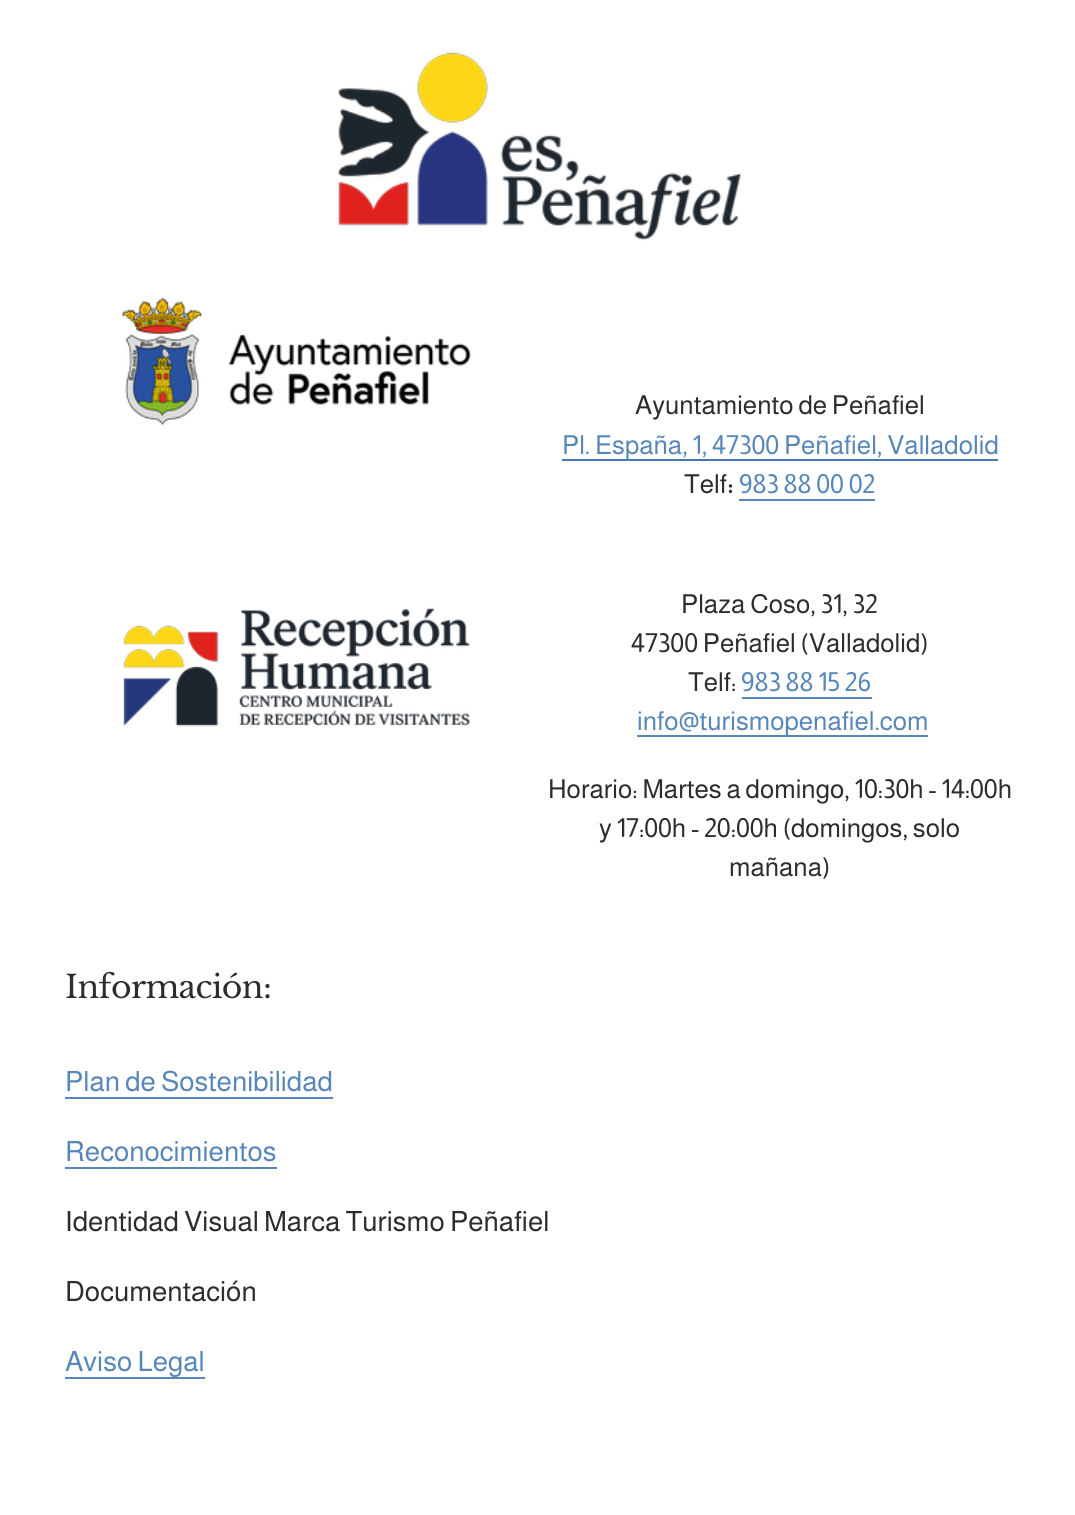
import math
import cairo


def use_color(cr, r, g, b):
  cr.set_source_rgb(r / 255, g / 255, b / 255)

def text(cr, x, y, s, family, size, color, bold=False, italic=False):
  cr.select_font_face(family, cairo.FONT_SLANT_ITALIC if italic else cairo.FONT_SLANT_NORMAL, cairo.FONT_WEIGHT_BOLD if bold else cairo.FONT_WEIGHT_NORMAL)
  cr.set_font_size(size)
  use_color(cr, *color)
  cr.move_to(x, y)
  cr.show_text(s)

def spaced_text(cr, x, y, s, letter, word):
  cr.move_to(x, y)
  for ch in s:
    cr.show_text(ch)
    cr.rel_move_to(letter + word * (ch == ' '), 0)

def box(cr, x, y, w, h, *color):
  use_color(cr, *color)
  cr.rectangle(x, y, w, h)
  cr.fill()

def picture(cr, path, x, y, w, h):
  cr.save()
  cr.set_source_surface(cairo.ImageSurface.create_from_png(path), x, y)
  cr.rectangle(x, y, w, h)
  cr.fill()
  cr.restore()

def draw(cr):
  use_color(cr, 255, 255, 255)
  cr.paint()
  picture(cr, "img_01.png", 338, 52, 403, 189)
  picture(cr, "img_02.png", 121, 297, 350, 129)
  box(cr, 562, 459, 436, 2, 68, 121, 177)
  box(cr, 739, 499, 136, 2, 87, 134, 185)
  picture(cr, "img_03.png", 123, 607, 347, 120)
  box(cr, 742, 697, 130, 2, 87, 134, 185)
  box(cr, 637, 735, 291, 2, 87, 134, 185)
  box(cr, 65, 1097, 268, 2, 87, 134, 185)
  box(cr, 65, 1167, 212, 2, 87, 134, 185)
  box(cr, 65, 1377, 140, 2, 87, 134, 185)
  text(cr, 635, 414, "Ayuntamiento de Peñafiel", "Almarai", 26.2, (45, 45, 42))
  text(cr, 562, 454, "Pl. España, 1, 47300 Peñafiel, Valladolid", "Almarai", 26.2, (87, 134, 185))
  text(cr, 684, 493, "Telf", "Almarai", 26.2, (45, 45, 42))
  text(cr, 727, 493, ":", "Almarai", 26.2, (45, 45, 42), bold=True)
  text(cr, 739, 493, "983 88 00 02", "Almarai", 26.2, (87, 134, 185))
  text(cr, 681, 613, "Plaza Coso, 31, 32", "Almarai", 26.2, (45, 45, 42))
  text(cr, 631, 652, "47300 Peñafiel (Valladolid)", "Almarai", 26.2, (45, 45, 42))
  text(cr, 688, 691, "Telf:", "Almarai", 26.2, (45, 45, 42))
  text(cr, 741, 691, "983 88 15 26", "Almarai", 26.2, (87, 134, 185))
  text(cr, 637, 730, "info@turismopenafiel.com", "Almarai", 26.2, (87, 134, 185))
  text(cr, 548, 798, "Horario: Martes a domingo, 10:30h - 14:00h", "Almarai", 26.2, (45, 45, 42))
  text(cr, 599, 837, "y 17:00h - 20:00h (domingos, solo", "Almarai", 26.2, (45, 45, 42))
  text(cr, 729, 876, "mañana)", "Almarai", 26.2, (45, 45, 42))
  cr.select_font_face("Libre Baskerville")
  cr.set_font_size(31.5)
  spaced_text(cr, 65, 998, "Información:", -0.6, 0)
  text(cr, 65, 1091, "Plan de Sostenibilidad", "Almarai", 28, (87, 134, 185))
  text(cr, 65, 1161, "Reconocimientos", "Almarai", 28, (87, 134, 185))
  text(cr, 65, 1231, "Identidad Visual Marca Turismo Peñafiel", "Almarai", 28, (45, 45, 42))
  text(cr, 65, 1301, "Documentación", "Almarai", 28, (45, 45, 42))
  text(cr, 65, 1371, "Aviso Legal", "Almarai", 28, (87, 134, 185))


surface = cairo.ImageSurface(cairo.FORMAT_RGB24, 1075, 1515)
cr = cairo.Context(surface)
options = cairo.FontOptions()
options.set_hint_metrics(cairo.HINT_METRICS_OFF)
options.set_hint_style(cairo.HINT_STYLE_NONE)
cr.set_font_options(options)
cr.set_miter_limit(4)
draw(cr)
surface.write_to_png("out.png")
